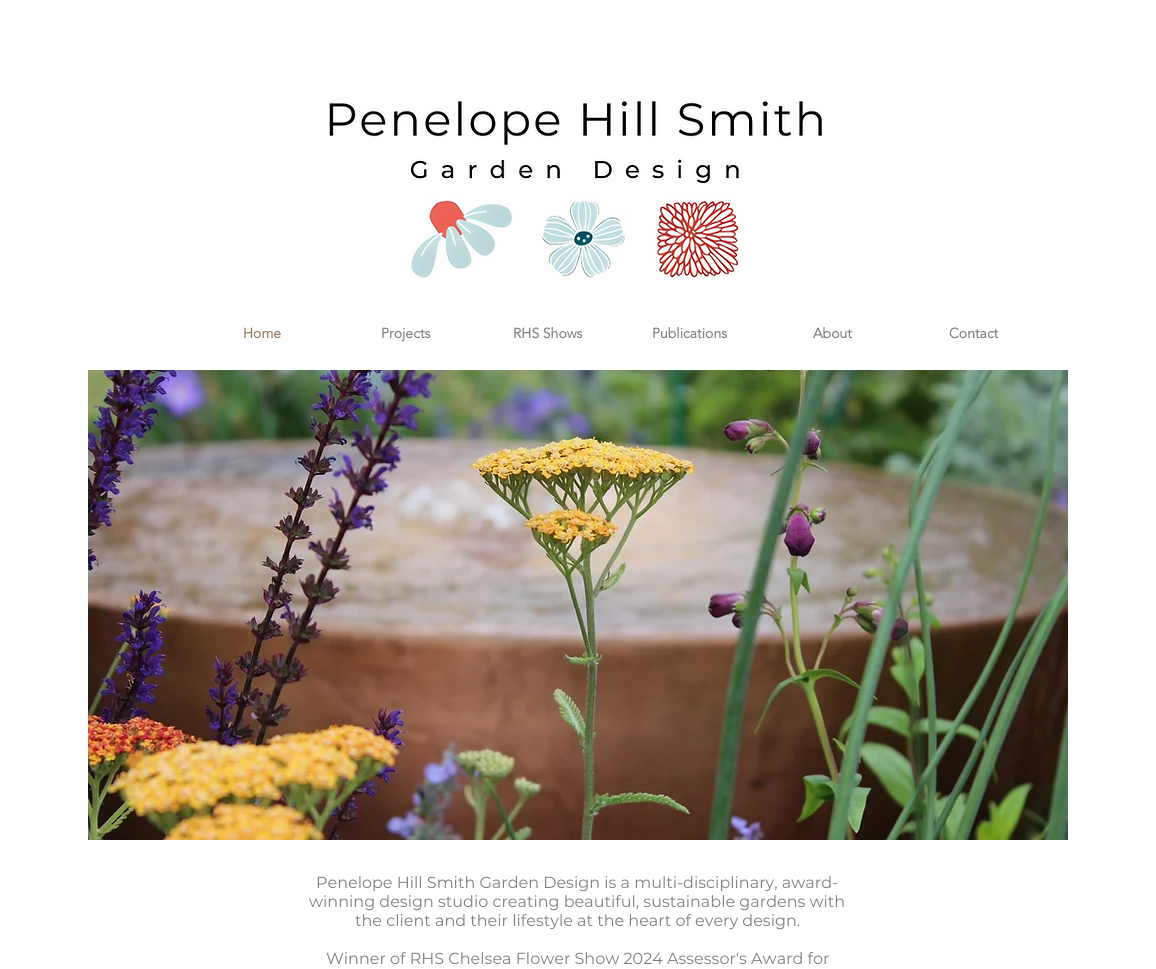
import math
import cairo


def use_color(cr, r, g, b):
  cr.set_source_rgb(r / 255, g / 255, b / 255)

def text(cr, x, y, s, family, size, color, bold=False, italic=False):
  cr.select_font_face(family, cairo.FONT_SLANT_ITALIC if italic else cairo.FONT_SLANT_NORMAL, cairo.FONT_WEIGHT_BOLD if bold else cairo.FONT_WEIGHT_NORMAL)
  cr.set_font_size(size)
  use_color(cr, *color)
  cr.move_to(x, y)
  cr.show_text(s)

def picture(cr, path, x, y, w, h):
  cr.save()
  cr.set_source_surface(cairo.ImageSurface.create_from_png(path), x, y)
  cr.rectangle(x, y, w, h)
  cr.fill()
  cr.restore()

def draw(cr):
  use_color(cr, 255, 255, 255)
  cr.paint()
  picture(cr, "img_01.png", 329, 101, 496, 177)
  picture(cr, "img_02.png", 88, 370, 980, 470)
  text(cr, 243, 338, "Home", "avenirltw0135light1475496", 14, (149, 123, 95), bold=True)
  text(cr, 381, 338, "Projects", "avenirltw0135light1475496", 14, (128, 128, 128), bold=True)
  text(cr, 513, 338, "RHS Shows", "avenirltw0135light1475496", 14, (128, 128, 128), bold=True)
  text(cr, 652, 338, "Publications", "avenirltw0135light1475496", 14, (128, 128, 128), bold=True)
  text(cr, 813, 338, "About", "avenirltw0135light1475496", 14, (128, 128, 128), bold=True)
  text(cr, 949, 338, "Contact", "avenirltw0135light1475496", 14, (128, 128, 128), bold=True)
  text(cr, 316, 888, "Penelope Hill Smith Garden Design is a multi-disciplinary, award-", "Montserrat", 16, (128, 128, 128))
  text(cr, 309, 907, "winning design studio creating beautiful, sustainable gardens with", "Montserrat", 16, (128, 128, 128))
  text(cr, 355, 926, "the client and their lifestyle at the heart of every design.", "Montserrat", 16, (128, 128, 128))
  text(cr, 326, 964, "Winner of RHS Chelsea Flower Show 2024 Assessor's Award for", "Montserrat", 16, (128, 128, 128))


surface = cairo.ImageSurface(cairo.FORMAT_RGB24, 1156, 969)
cr = cairo.Context(surface)
options = cairo.FontOptions()
options.set_hint_metrics(cairo.HINT_METRICS_OFF)
options.set_hint_style(cairo.HINT_STYLE_NONE)
cr.set_font_options(options)
cr.set_miter_limit(4)
draw(cr)
surface.write_to_png("out.png")
